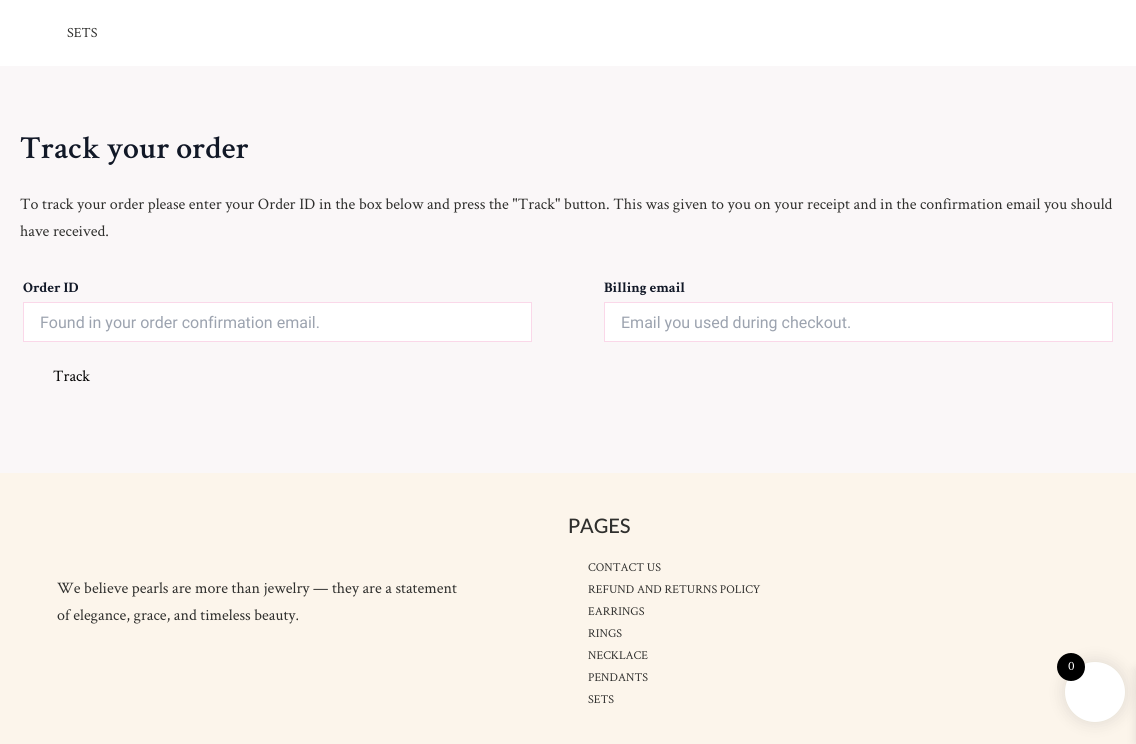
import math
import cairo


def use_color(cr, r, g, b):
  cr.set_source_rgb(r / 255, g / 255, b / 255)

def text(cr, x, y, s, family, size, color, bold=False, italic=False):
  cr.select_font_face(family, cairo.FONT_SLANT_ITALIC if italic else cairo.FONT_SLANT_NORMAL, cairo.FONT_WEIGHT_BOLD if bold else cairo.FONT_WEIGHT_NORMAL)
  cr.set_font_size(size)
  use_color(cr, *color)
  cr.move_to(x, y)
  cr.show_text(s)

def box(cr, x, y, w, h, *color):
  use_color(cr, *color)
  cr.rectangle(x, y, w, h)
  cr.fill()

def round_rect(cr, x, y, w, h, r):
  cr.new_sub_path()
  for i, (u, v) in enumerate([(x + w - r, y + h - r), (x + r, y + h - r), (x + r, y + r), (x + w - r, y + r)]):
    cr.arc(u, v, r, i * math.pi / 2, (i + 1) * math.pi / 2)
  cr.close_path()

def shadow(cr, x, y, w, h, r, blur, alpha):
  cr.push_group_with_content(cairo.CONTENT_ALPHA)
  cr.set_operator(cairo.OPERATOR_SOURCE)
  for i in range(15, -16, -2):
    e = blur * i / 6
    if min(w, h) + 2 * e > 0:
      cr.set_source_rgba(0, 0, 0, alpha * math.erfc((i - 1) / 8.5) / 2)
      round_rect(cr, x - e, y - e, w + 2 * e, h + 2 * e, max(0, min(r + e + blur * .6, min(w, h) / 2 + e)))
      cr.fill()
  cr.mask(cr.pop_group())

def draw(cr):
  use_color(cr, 250, 247, 248)
  cr.paint()
  box(cr, 0, 0, 1136, 66, 255, 255, 255)
  cr.rectangle(23.5, 302.5, 508, 39)
  cr.fill_preserve()
  use_color(cr, 250, 216, 233)
  cr.set_line_width(1)
  cr.stroke()
  use_color(cr, 255, 255, 255)
  cr.rectangle(604.5, 302.5, 508, 39)
  cr.fill_preserve()
  use_color(cr, 250, 216, 233)
  cr.stroke()
  box(cr, 0, 473, 1136, 271, 252, 245, 235)
  use_color(cr, 0, 0, 0)
  shadow(cr, 1063, 660, 64, 64, 32, 7.5, 0.1)
  shadow(cr, 1136, 669, 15, 74, 0, 5, 0.1)
  use_color(cr, 255, 255, 255)
  cr.arc(1095, 692, 30, 0, 2 * math.pi)
  cr.fill()
  use_color(cr, 0, 0, 0)
  cr.arc(1071, 667, 14, 0, 2 * math.pi)
  cr.fill()
  text(cr, 67, 37, "SETS", "Crimson Text", 14, (47, 47, 45))
  text(cr, 20, 158, "Track your order", "Crimson Text SemiBold", 32, (17, 24, 39))
  text(cr, 20, 209, "To track your order please enter your Order ID in the box below and press the \"Track\" button. This was given to you on your receipt and in the confirmation email you should", "Crimson Text", 16, (47, 47, 45))
  text(cr, 20, 236, "have received.", "Crimson Text", 16, (47, 47, 45))
  text(cr, 23, 292, "Order ID", "Crimson Text", 14.5, (17, 24, 39), bold=True)
  text(cr, 40, 328, "Found in your order confirmation email.", "Roboto", 16, (156, 163, 175))
  text(cr, 604, 292, "Billing email", "Crimson Text", 14.5, (17, 24, 39), bold=True)
  text(cr, 621, 328, "Email you used during checkout.", "Roboto", 16, (156, 163, 175))
  text(cr, 53, 381, "Track", "Crimson Text", 16, (0, 0, 0))
  text(cr, 57, 593, "We believe pearls are more than jewelry — they are a statement", "Crimson Text", 16, (47, 47, 45))
  text(cr, 57, 620, "of elegance, grace, and timeless beauty.", "Crimson Text", 16, (47, 47, 45))
  text(cr, 568, 533, "PAGES", "Lato Medium", 20, (47, 47, 45))
  text(cr, 588, 571, "CONTACT US", "Crimson Text", 12, (47, 47, 45))
  text(cr, 588, 593, "REFUND AND RETURNS POLICY", "Crimson Text", 12, (47, 47, 45))
  text(cr, 588, 615, "EARRINGS", "Crimson Text", 12, (47, 47, 45))
  text(cr, 588, 637, "RINGS", "Crimson Text", 12, (47, 47, 45))
  text(cr, 588, 659, "NECKLACE", "Crimson Text", 12, (47, 47, 45))
  text(cr, 588, 681, "PENDANTS", "Crimson Text", 12, (47, 47, 45))
  text(cr, 588, 703, "SETS", "Crimson Text", 12, (47, 47, 45))
  text(cr, 1068, 670, "0", "Crimson Text", 13, (255, 255, 255))


surface = cairo.ImageSurface(cairo.FORMAT_RGB24, 1136, 744)
cr = cairo.Context(surface)
options = cairo.FontOptions()
options.set_hint_metrics(cairo.HINT_METRICS_OFF)
options.set_hint_style(cairo.HINT_STYLE_NONE)
cr.set_font_options(options)
cr.set_miter_limit(4)
draw(cr)
surface.write_to_png("out.png")
